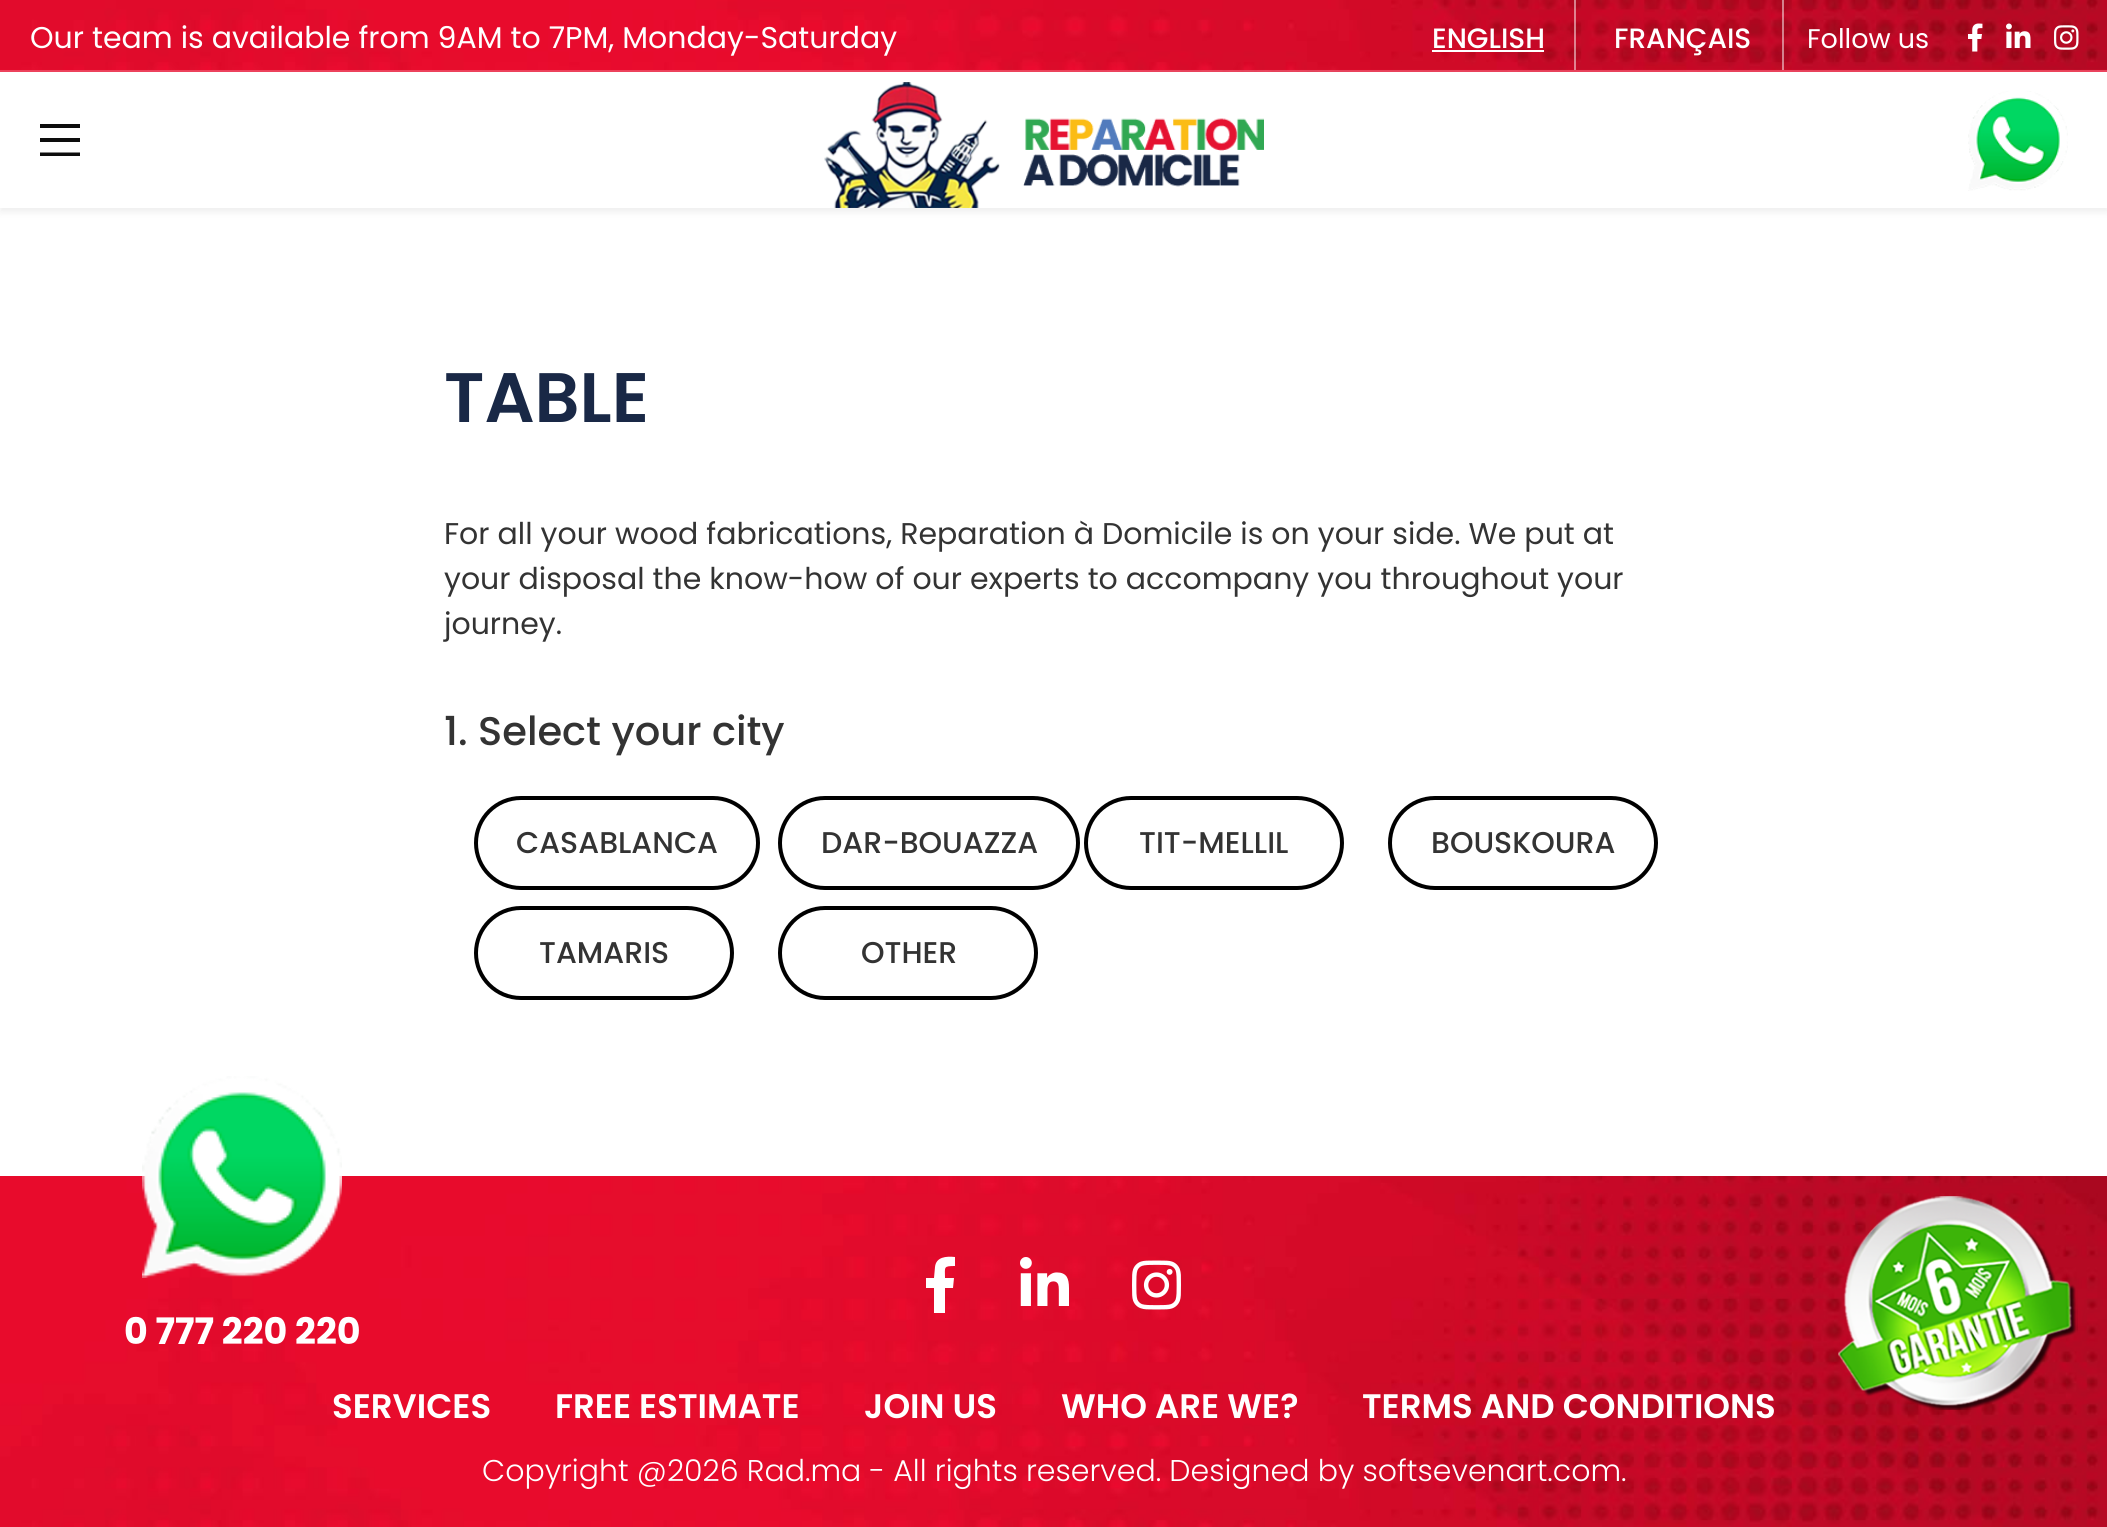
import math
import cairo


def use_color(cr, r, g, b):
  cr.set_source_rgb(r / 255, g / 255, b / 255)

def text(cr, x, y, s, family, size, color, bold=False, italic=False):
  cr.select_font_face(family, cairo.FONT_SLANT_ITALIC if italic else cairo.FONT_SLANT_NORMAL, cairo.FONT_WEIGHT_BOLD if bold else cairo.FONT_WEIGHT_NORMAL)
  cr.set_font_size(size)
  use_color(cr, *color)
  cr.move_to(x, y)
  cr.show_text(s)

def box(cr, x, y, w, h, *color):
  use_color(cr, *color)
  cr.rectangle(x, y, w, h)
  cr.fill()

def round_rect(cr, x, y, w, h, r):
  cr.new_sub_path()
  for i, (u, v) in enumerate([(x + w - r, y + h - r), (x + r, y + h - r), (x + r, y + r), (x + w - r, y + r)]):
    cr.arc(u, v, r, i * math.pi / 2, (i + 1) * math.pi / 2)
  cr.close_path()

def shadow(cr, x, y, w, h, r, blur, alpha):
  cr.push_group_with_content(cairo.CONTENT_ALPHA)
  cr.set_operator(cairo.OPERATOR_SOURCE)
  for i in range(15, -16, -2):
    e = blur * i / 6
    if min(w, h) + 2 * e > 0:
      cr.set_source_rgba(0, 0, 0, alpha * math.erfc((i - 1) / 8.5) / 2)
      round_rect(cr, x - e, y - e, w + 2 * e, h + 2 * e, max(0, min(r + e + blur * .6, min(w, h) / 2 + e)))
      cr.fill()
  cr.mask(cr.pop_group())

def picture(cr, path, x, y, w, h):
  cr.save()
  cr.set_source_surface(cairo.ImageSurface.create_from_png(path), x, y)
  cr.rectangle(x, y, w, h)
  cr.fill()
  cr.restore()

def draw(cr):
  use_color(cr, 255, 255, 255)
  cr.paint()
  use_color(cr, 0, 0, 0)
  shadow(cr, 0, 4, 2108, 208, 0, 4, 0.07)
  picture(cr, "img_01.png", 0, 0, 2107, 72)
  cr.set_source_rgba(1, 1, 1, 0.23)
  cr.rectangle(0, 70, 2107, 2)
  cr.fill()
  box(cr, 1432, 50, 112, 2, 255, 255, 255)
  cr.set_source_rgba(1, 1, 1, 0.49)
  cr.rectangle(1574, 0, 2, 70)
  cr.fill()
  cr.rectangle(1782, 0, 2, 70)
  cr.fill()
  picture(cr, "img_02.png", 1968, 23, 15, 29)
  picture(cr, "img_03.png", 2006, 23, 25, 25)
  picture(cr, "img_04.png", 2054, 25, 25, 25)
  box(cr, 0, 72, 2107, 136, 255, 255, 255)
  cr.save()
  cr.rectangle(40, 124, 40, 32)
  cr.clip()
  use_color(cr, 13, 13, 13)
  cr.set_fill_rule(cairo.FILL_RULE_EVEN_ODD)
  cr.new_path()
  cr.move_to(40, 124)
  cr.line_to(80, 124)
  cr.line_to(80, 128)
  cr.line_to(40, 128)
  cr.close_path()
  cr.move_to(40, 138)
  cr.line_to(80, 138)
  cr.line_to(80, 142)
  cr.line_to(40, 142)
  cr.close_path()
  cr.move_to(40, 152.5)
  cr.line_to(80, 152.5)
  cr.line_to(80, 156.5)
  cr.line_to(40, 156.5)
  cr.close_path()
  cr.fill()
  cr.restore()
  picture(cr, "img_05.png", 824, 82, 440, 126)
  picture(cr, "img_06.png", 1968, 91, 100, 100)
  round_rect(cr, 476, 798, 282, 90, 45)
  use_color(cr, 0, 0, 0)
  cr.set_line_width(4)
  cr.stroke()
  round_rect(cr, 780, 798, 298, 90, 45)
  cr.stroke()
  round_rect(cr, 1086, 798, 256, 90, 45)
  cr.stroke()
  round_rect(cr, 1390, 798, 266, 90, 45)
  cr.stroke()
  round_rect(cr, 476, 908, 256, 90, 45)
  cr.stroke()
  round_rect(cr, 780, 908, 256, 90, 45)
  cr.stroke()
  picture(cr, "img_07.png", 0, 1176, 2107, 351)
  use_color(cr, 255, 255, 255)
  cr.new_path()
  cr.move_to(934, 1313)
  cr.line_to(934, 1288)
  cr.line_to(926, 1288)
  cr.line_to(926, 1278)
  cr.line_to(934, 1278)
  cr.line_to(935, 1267)
  cr.curve_to(936, 1257, 946, 1256, 955, 1257)
  cr.line_to(955, 1266)
  cr.curve_to(943, 1266, 945, 1267, 945, 1278)
  cr.line_to(954, 1278)
  cr.line_to(953, 1288)
  cr.line_to(945, 1288)
  cr.line_to(945, 1313)
  cr.close_path()
  cr.fill()
  picture(cr, "img_08.png", 1020, 1257, 49, 49)
  picture(cr, "img_09.png", 1132, 1260, 49, 50)
  picture(cr, "img_10.png", 1838, 1196, 240, 214)
  picture(cr, "img_11.png", 142, 1076, 200, 202)
  text(cr, 30, 48, "Our team is available from 9AM to 7PM, Monday-Saturday", "Poppins", 30, (255, 255, 255))
  text(cr, 1432, 48, "ENGLISH", "Poppins Medium", 28, (255, 255, 255))
  text(cr, 1614, 48, "FRANÇAIS", "Poppins Medium", 28, (255, 255, 255))
  text(cr, 1807, 48, "Follow us", "Poppins", 27, (255, 255, 255))
  text(cr, 444, 422, "TABLE", "Poppins SemiBold", 70, (25, 40, 70))
  text(cr, 444, 544, "For all your wood fabrications, Reparation à Domicile is on your side. We put at", "Poppins", 30, (51, 51, 51))
  text(cr, 444, 589, "your disposal the know-how of our experts to accompany you throughout your", "Poppins", 30, (51, 51, 51))
  text(cr, 444, 634, "journey.", "Poppins", 30, (51, 51, 51))
  text(cr, 444, 745, "1. Select your city", "Poppins Medium", 40, (51, 51, 51))
  text(cr, 516, 853, "CASABLANCA", "Poppins Medium", 30, (51, 51, 51))
  text(cr, 821, 853, "DAR-BOUAZZA", "Poppins Medium", 30, (51, 51, 51))
  text(cr, 1139, 853, "TIT-MELLIL", "Poppins Medium", 30, (51, 51, 51))
  text(cr, 1431, 853, "BOUSKOURA", "Poppins Medium", 30, (51, 51, 51))
  text(cr, 539, 963, "TAMARIS", "Poppins Medium", 30, (51, 51, 51))
  text(cr, 861, 963, "OTHER", "Poppins Medium", 30, (51, 51, 51))
  text(cr, 124, 1344, "0 777 220 220", "Poppins", 36.5, (255, 255, 255), bold=True)
  text(cr, 332, 1418, "SERVICES", "Poppins SemiBold", 34, (255, 255, 255))
  text(cr, 555, 1418, "FREE ESTIMATE", "Poppins SemiBold", 34, (255, 255, 255))
  text(cr, 864, 1418, "JOIN US", "Poppins SemiBold", 34, (255, 255, 255))
  text(cr, 1061, 1418, "WHO ARE WE?", "Poppins SemiBold", 34, (255, 255, 255))
  text(cr, 1362, 1418, "TERMS AND CONDITIONS", "Poppins SemiBold", 34, (255, 255, 255))
  text(cr, 482, 1481, "Copyright @2026 Rad.ma - All rights reserved. Designed by softsevenart.com.", "Poppins Light", 30, (255, 255, 255))


surface = cairo.ImageSurface(cairo.FORMAT_RGB24, 2107, 1527)
cr = cairo.Context(surface)
options = cairo.FontOptions()
options.set_hint_metrics(cairo.HINT_METRICS_OFF)
options.set_hint_style(cairo.HINT_STYLE_NONE)
cr.set_font_options(options)
cr.set_miter_limit(4)
draw(cr)
surface.write_to_png("out.png")
